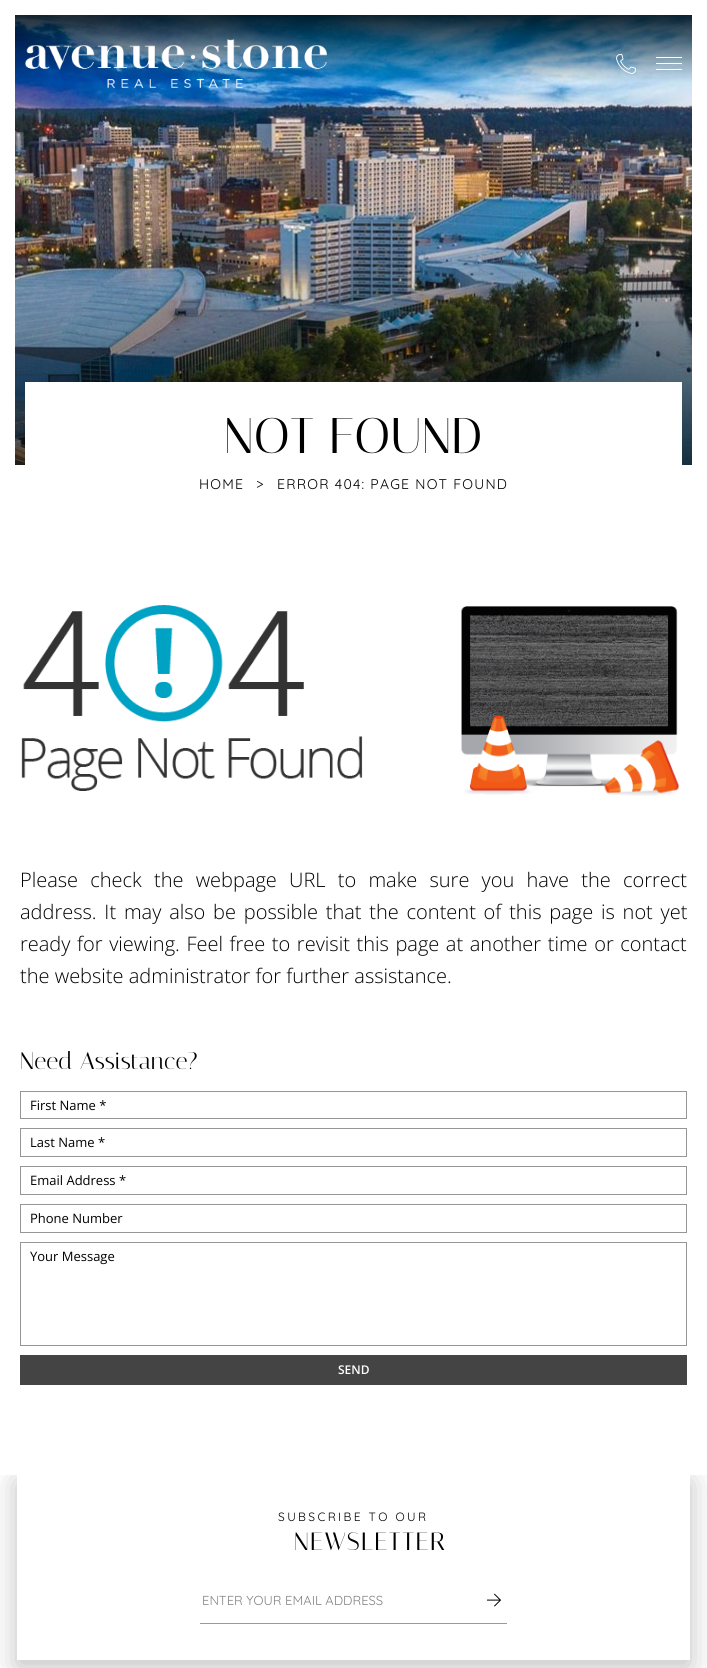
import math
import cairo


def use_color(cr, r, g, b):
  cr.set_source_rgb(r / 255, g / 255, b / 255)

def text(cr, x, y, s, family, size, color, bold=False, italic=False):
  cr.select_font_face(family, cairo.FONT_SLANT_ITALIC if italic else cairo.FONT_SLANT_NORMAL, cairo.FONT_WEIGHT_BOLD if bold else cairo.FONT_WEIGHT_NORMAL)
  cr.set_font_size(size)
  use_color(cr, *color)
  cr.move_to(x, y)
  cr.show_text(s)

def spaced_text(cr, x, y, s, letter, word):
  cr.move_to(x, y)
  for ch in s:
    cr.show_text(ch)
    cr.rel_move_to(letter + word * (ch == ' '), 0)

def box(cr, x, y, w, h, *color):
  use_color(cr, *color)
  cr.rectangle(x, y, w, h)
  cr.fill()

def round_rect(cr, x, y, w, h, r):
  cr.new_sub_path()
  for i, (u, v) in enumerate([(x + w - r, y + h - r), (x + r, y + h - r), (x + r, y + r), (x + w - r, y + r)]):
    cr.arc(u, v, r, i * math.pi / 2, (i + 1) * math.pi / 2)
  cr.close_path()

def shadow(cr, x, y, w, h, r, blur, alpha):
  cr.push_group_with_content(cairo.CONTENT_ALPHA)
  cr.set_operator(cairo.OPERATOR_SOURCE)
  for i in range(15, -16, -2):
    e = blur * i / 6
    if min(w, h) + 2 * e > 0:
      cr.set_source_rgba(0, 0, 0, alpha * math.erfc((i - 1) / 8.5) / 2)
      round_rect(cr, x - e, y - e, w + 2 * e, h + 2 * e, max(0, min(r + e + blur * .6, min(w, h) / 2 + e)))
      cr.fill()
  cr.mask(cr.pop_group())

def picture(cr, path, x, y, w, h):
  cr.save()
  cr.set_source_surface(cairo.ImageSurface.create_from_png(path), x, y)
  cr.rectangle(x, y, w, h)
  cr.fill()
  cr.restore()

def draw(cr):
  use_color(cr, 255, 255, 255)
  cr.paint()
  picture(cr, "img_03.png", 15, 15, 677, 450)
  picture(cr, "img_01.png", 25, 39, 302, 49)
  picture(cr, "img_02.png", 616, 53, 20, 21)
  box(cr, 656, 69, 26, 1, 255, 255, 255)
  box(cr, 656, 63, 26, 1, 255, 255, 255)
  box(cr, 656, 57, 26, 1, 255, 255, 255)
  box(cr, 25, 382, 657, 83, 255, 255, 255)
  picture(cr, "img_04.png", 21, 605, 342, 186)
  picture(cr, "img_05.png", 461, 606, 218, 190)
  cr.rectangle(20.5, 1091.5, 666, 27)
  use_color(cr, 150, 150, 150)
  cr.set_line_width(1)
  cr.stroke()
  cr.rectangle(20.5, 1128.5, 666, 28)
  cr.stroke()
  cr.rectangle(20.5, 1166.5, 666, 28)
  cr.stroke()
  cr.rectangle(20.5, 1204.5, 666, 28)
  cr.stroke()
  cr.rectangle(20.5, 1242.5, 666, 103)
  cr.stroke()
  box(cr, 20, 1355, 667, 30, 68, 68, 68)
  cr.save()
  cr.rectangle(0, 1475, 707, 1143)
  cr.clip()
  cr.set_fill_rule(cairo.FILL_RULE_EVEN_ODD)
  cr.new_path()
  cr.move_to(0, 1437)
  cr.line_to(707, 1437)
  cr.line_to(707, 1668)
  cr.line_to(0, 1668)
  cr.close_path()
  cr.move_to(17, 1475)
  cr.line_to(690, 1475)
  cr.line_to(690, 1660)
  cr.line_to(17, 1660)
  cr.close_path()
  cr.clip()
  use_color(cr, 0, 0, 0)
  shadow(cr, 17, 1482, 673, 185, 0, 14.5, 0.25)
  cr.restore()
  box(cr, 200, 1623, 307, 1, 153, 153, 153)
  picture(cr, "img_06.png", 487, 1593, 15, 14)
  text(cr, 224, 453, "NOT FOUND", "Italiana", 50, (0, 0, 0))
  cr.select_font_face("Quicksand")
  cr.set_font_size(14)
  spaced_text(cr, 199, 489, "HOME", 1.2, 0)
  spaced_text(cr, 256, 489, ">", 1.2, 0)
  spaced_text(cr, 277, 489, "ERROR 404: PAGE NOT FOUND", 1.2, 0)
  cr.select_font_face("Open Sans Light")
  cr.set_font_size(20)
  spaced_text(cr, 20, 887, "Please check the webpage URL to make sure you have the correct", 0, 7)
  spaced_text(cr, 20, 919, "address. It may also be possible that the content of this page is not yet", 0, 2.6)
  spaced_text(cr, 20, 951, "ready for viewing. Feel free to revisit this page at another time or contact", 0, 1.4)
  text(cr, 20, 983, "the website administrator for further assistance.", "Open Sans Light", 20, (0, 0, 0))
  text(cr, 20, 1069, "Need Assistance?", "Italiana", 24, (0, 0, 0))
  text(cr, 30, 1110, "First Name *", "Open Sans", 13, (0, 0, 0))
  text(cr, 30, 1147, "Last Name *", "Open Sans", 13, (0, 0, 0))
  text(cr, 30, 1185, "Email Address *", "Open Sans", 13, (0, 0, 0))
  text(cr, 30, 1223, "Phone Number", "Open Sans", 13, (0, 0, 0))
  text(cr, 30, 1261, "Your Message", "Open Sans", 13, (0, 0, 0))
  text(cr, 338, 1374, "SEND", "Open Sans SemiBold", 12, (255, 255, 255))
  cr.select_font_face("Quicksand")
  use_color(cr, 0, 0, 0)
  spaced_text(cr, 278, 1521, "SUBSCRIBE TO OUR", 2.4, 0)
  cr.select_font_face("Italiana")
  cr.set_font_size(25)
  spaced_text(cr, 294, 1550, "NEWSLETTER", 1.25, 0)
  text(cr, 202, 1605, "ENTER YOUR EMAIL ADDRESS", "Quicksand", 13, (130, 130, 130))


surface = cairo.ImageSurface(cairo.FORMAT_RGB24, 707, 1668)
cr = cairo.Context(surface)
options = cairo.FontOptions()
options.set_hint_metrics(cairo.HINT_METRICS_OFF)
options.set_hint_style(cairo.HINT_STYLE_NONE)
cr.set_font_options(options)
cr.set_miter_limit(4)
draw(cr)
surface.write_to_png("out.png")
